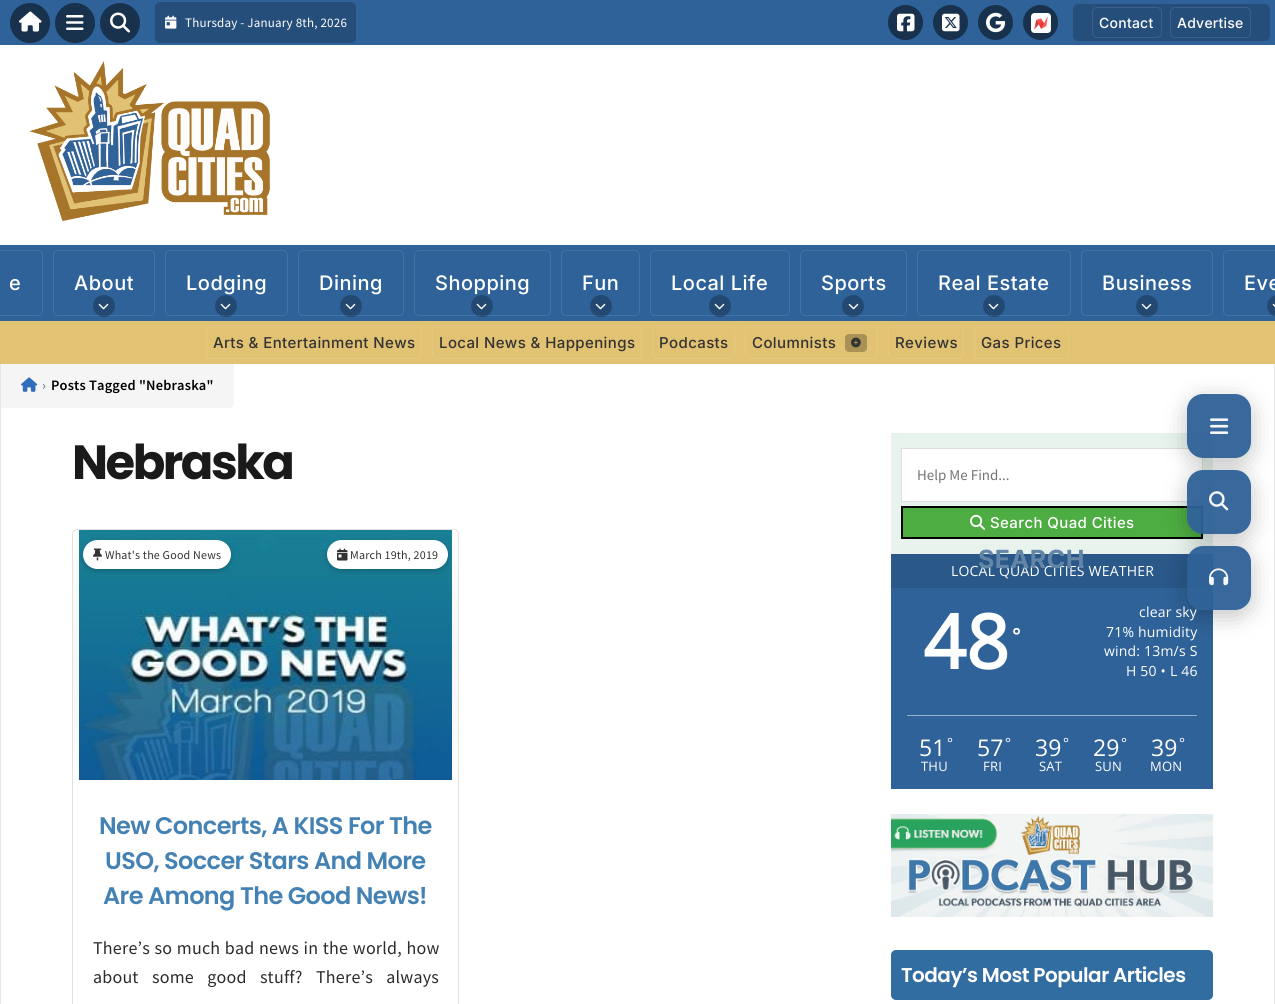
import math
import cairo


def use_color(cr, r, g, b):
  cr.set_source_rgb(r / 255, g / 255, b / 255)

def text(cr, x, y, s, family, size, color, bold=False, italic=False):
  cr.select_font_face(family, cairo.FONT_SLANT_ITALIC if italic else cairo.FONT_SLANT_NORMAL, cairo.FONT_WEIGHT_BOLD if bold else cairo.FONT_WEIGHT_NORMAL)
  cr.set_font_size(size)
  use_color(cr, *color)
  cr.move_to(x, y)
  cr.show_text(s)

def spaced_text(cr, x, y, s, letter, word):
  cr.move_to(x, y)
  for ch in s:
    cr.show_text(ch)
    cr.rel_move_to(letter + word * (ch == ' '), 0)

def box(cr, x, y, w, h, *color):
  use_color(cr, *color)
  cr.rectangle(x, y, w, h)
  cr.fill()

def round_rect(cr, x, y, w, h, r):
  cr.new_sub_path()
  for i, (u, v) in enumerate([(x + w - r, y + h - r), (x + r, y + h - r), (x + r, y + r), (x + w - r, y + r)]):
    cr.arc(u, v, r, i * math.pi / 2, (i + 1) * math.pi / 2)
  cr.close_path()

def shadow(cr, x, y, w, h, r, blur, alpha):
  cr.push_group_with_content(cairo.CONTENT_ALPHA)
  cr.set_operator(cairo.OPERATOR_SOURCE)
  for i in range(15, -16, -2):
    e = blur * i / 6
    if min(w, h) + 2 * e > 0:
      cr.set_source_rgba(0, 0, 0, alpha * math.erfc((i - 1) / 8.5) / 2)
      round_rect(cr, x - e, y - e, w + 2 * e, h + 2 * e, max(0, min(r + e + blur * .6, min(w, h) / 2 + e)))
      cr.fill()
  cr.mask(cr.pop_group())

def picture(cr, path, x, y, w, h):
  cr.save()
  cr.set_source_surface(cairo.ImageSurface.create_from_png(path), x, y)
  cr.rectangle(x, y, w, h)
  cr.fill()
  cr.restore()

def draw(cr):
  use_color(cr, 47, 98, 152)
  cr.paint()
  use_color(cr, 24, 49, 76)
  cr.arc(30, 23, 20, 0, 2 * math.pi)
  cr.fill()
  picture(cr, "img_01.png", 19, 11, 23, 21)
  cr.arc(75, 23, 20, 0, 2 * math.pi)
  cr.fill()
  picture(cr, "img_02.png", 66, 15, 18, 15)
  cr.arc(120, 23, 20, 0, 2 * math.pi)
  cr.fill()
  picture(cr, "img_03.png", 110, 12, 20, 21)
  use_color(cr, 38, 78, 122)
  round_rect(cr, 155, 2, 201, 41, 5)
  cr.fill()
  picture(cr, "img_04.png", 165, 15, 12, 14)
  use_color(cr, 24, 49, 76)
  cr.arc(905.5, 22.5, 17.5, 0, 2 * math.pi)
  cr.fill()
  picture(cr, "img_05.png", 897, 13, 18, 19)
  cr.arc(950.5, 22.5, 17.5, 0, 2 * math.pi)
  cr.fill()
  picture(cr, "img_06.png", 942, 13, 18, 19)
  cr.arc(995.5, 22.5, 17.5, 0, 2 * math.pi)
  cr.fill()
  picture(cr, "img_07.png", 986, 12, 20, 21)
  cr.arc(1040.5, 22.5, 17.5, 0, 2 * math.pi)
  cr.fill()
  picture(cr, "img_08.png", 1031, 13, 20, 20)
  use_color(cr, 38, 78, 122)
  round_rect(cr, 1073, 4, 197, 37, 5)
  cr.fill()
  round_rect(cr, 1092.5, 7.5, 69, 30, 4.5)
  use_color(cr, 60, 96, 135)
  cr.set_line_width(1)
  cr.stroke()
  round_rect(cr, 1170.5, 7.5, 80, 30, 4.5)
  cr.stroke()
  box(cr, 0, 45, 1275, 200, 255, 255, 255)
  picture(cr, "img_09.png", 29, 61, 241, 160)
  round_rect(cr, -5.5, 250.5, 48, 65, 4.5)
  use_color(cr, 68, 114, 162)
  cr.stroke()
  round_rect(cr, 53.5, 250.5, 101, 65, 4.5)
  cr.stroke()
  cr.set_source_rgba(0, 0, 0, 0.25)
  cr.arc(104, 306, 11, 0, 2 * math.pi)
  cr.fill()
  picture(cr, "img_10.png", 98, 303, 11, 7)
  round_rect(cr, 165.5, 250.5, 122, 65, 4.5)
  use_color(cr, 68, 114, 162)
  cr.stroke()
  cr.set_source_rgba(0, 0, 0, 0.25)
  cr.arc(226, 306, 11, 0, 2 * math.pi)
  cr.fill()
  picture(cr, "img_10.png", 220, 303, 11, 7)
  round_rect(cr, 298.5, 250.5, 105, 65, 4.5)
  use_color(cr, 68, 114, 162)
  cr.stroke()
  cr.set_source_rgba(0, 0, 0, 0.25)
  cr.arc(351, 306, 11, 0, 2 * math.pi)
  cr.fill()
  picture(cr, "img_10.png", 345, 303, 11, 7)
  round_rect(cr, 414.5, 250.5, 136, 65, 4.5)
  use_color(cr, 68, 114, 162)
  cr.stroke()
  cr.set_source_rgba(0, 0, 0, 0.25)
  cr.arc(482, 306, 11, 0, 2 * math.pi)
  cr.fill()
  picture(cr, "img_10.png", 476, 303, 11, 7)
  round_rect(cr, 561.5, 250.5, 78, 65, 4.5)
  use_color(cr, 68, 114, 162)
  cr.stroke()
  cr.set_source_rgba(0, 0, 0, 0.25)
  cr.arc(601, 306, 11, 0, 2 * math.pi)
  cr.fill()
  picture(cr, "img_10.png", 595, 303, 11, 7)
  round_rect(cr, 650.5, 250.5, 139, 65, 4.5)
  use_color(cr, 68, 114, 162)
  cr.stroke()
  cr.set_source_rgba(0, 0, 0, 0.25)
  cr.arc(720, 306, 11, 0, 2 * math.pi)
  cr.fill()
  picture(cr, "img_10.png", 714, 303, 11, 7)
  round_rect(cr, 800.5, 250.5, 106, 65, 4.5)
  use_color(cr, 68, 114, 162)
  cr.stroke()
  cr.set_source_rgba(0, 0, 0, 0.25)
  cr.arc(853, 306, 11, 0, 2 * math.pi)
  cr.fill()
  picture(cr, "img_10.png", 848, 303, 11, 7)
  round_rect(cr, 917.5, 250.5, 153, 65, 4.5)
  use_color(cr, 68, 114, 162)
  cr.stroke()
  cr.set_source_rgba(0, 0, 0, 0.25)
  cr.arc(994, 306, 11, 0, 2 * math.pi)
  cr.fill()
  picture(cr, "img_10.png", 988, 303, 11, 7)
  round_rect(cr, 1081.5, 250.5, 131, 65, 4.5)
  use_color(cr, 68, 114, 162)
  cr.stroke()
  cr.set_source_rgba(0, 0, 0, 0.25)
  cr.arc(1147, 306, 11, 0, 2 * math.pi)
  cr.fill()
  picture(cr, "img_10.png", 1141, 303, 11, 7)
  round_rect(cr, 1223.5, 250.5, 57, 65, 4.5)
  use_color(cr, 68, 114, 162)
  cr.stroke()
  cr.set_source_rgba(0, 0, 0, 0.25)
  round_rect(cr, 1267, 295, 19, 22, 11)
  cr.fill()
  picture(cr, "img_11.png", 1272, 303, 3, 4)
  box(cr, 0, 321, 1275, 43, 226, 194, 115)
  round_rect(cr, 206.5, 326.5, 215, 32, 4.5)
  use_color(cr, 229, 200, 129)
  cr.stroke()
  round_rect(cr, 432.5, 326.5, 209, 32, 4.5)
  cr.stroke()
  round_rect(cr, 652.5, 326.5, 82, 32, 4.5)
  cr.stroke()
  round_rect(cr, 745.5, 326.5, 132, 32, 4.5)
  cr.stroke()
  use_color(cr, 170, 146, 86)
  round_rect(cr, 845, 334, 22, 18, 4)
  cr.fill()
  picture(cr, "img_12.png", 851, 337, 10, 11)
  round_rect(cr, 888.5, 326.5, 75, 32, 4.5)
  use_color(cr, 229, 200, 129)
  cr.stroke()
  round_rect(cr, 974.5, 326.5, 94, 32, 4.5)
  cr.stroke()
  box(cr, 1, 364, 1273, 640, 255, 255, 255)
  box(cr, 1274, 364, 1, 640, 230, 230, 230)
  box(cr, 0, 364, 1, 640, 230, 230, 230)
  use_color(cr, 245, 245, 245)
  cr.new_path()
  cr.move_to(1, 364)
  cr.line_to(234, 364)
  cr.line_to(234, 403)
  cr.curve_to(234, 406, 232, 408, 229, 408)
  cr.line_to(1, 408)
  cr.close_path()
  cr.fill()
  picture(cr, "img_13.png", 21, 377, 17, 15)
  round_rect(cr, 72.5, 529.5, 386, 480, 4.5)
  use_color(cr, 225, 225, 225)
  cr.stroke()
  gradient = cairo.RadialGradient(266, 655, 0, 266, 655, 230)
  gradient.add_color_stop_rgba(0, 0.827, 0.827, 0.827, 1)
  gradient.add_color_stop_rgba(1, 0.827, 0.827, 0.827, 0)
  cr.set_source(gradient)
  cr.rectangle(73, 530, 385, 250)
  cr.fill()
  picture(cr, "img_14.png", 79, 530, 373, 250)
  use_color(cr, 0, 0, 0)
  shadow(cr, 83, 542, 148, 29, 14.5, 2.5, 0.2)
  use_color(cr, 255, 255, 255)
  round_rect(cr, 83, 540, 148, 29, 14.5)
  cr.fill()
  picture(cr, "img_15.png", 93, 548, 9, 13)
  use_color(cr, 0, 0, 0)
  shadow(cr, 327, 542, 121, 29, 14.5, 2.5, 0.2)
  use_color(cr, 255, 255, 255)
  round_rect(cr, 327, 540, 121, 29, 14.5)
  cr.fill()
  picture(cr, "img_16.png", 337, 548, 11, 13)
  box(cr, 891, 433, 322, 121, 232, 243, 238)
  use_color(cr, 255, 255, 255)
  cr.rectangle(901.5, 448.5, 301, 53)
  cr.fill_preserve()
  use_color(cr, 221, 221, 221)
  cr.stroke()
  use_color(cr, 78, 173, 66)
  cr.rectangle(902, 507, 300, 31)
  cr.fill_preserve()
  use_color(cr, 0, 0, 0)
  cr.set_line_width(2)
  cr.stroke()
  picture(cr, "img_17.png", 970, 514, 15, 16)
  box(cr, 891, 588, 322, 201, 47, 98, 152)
  box(cr, 891, 554, 322, 34, 42, 88, 137)
  box(cr, 907, 715, 290, 1, 151, 177, 204)
  picture(cr, "img_18.png", 891, 814, 322, 103)
  use_color(cr, 49, 109, 161)
  round_rect(cr, 891, 950, 322, 50, 5)
  cr.fill()
  cr.save()
  cr.set_fill_rule(cairo.FILL_RULE_EVEN_ODD)
  cr.new_path()
  cr.move_to(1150, 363)
  cr.line_to(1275, 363)
  cr.line_to(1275, 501)
  cr.line_to(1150, 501)
  cr.close_path()
  cr.move_to(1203, 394)
  cr.line_to(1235, 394)
  cr.curve_to(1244, 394, 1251, 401, 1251, 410)
  cr.line_to(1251, 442)
  cr.curve_to(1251, 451, 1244, 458, 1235, 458)
  cr.line_to(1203, 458)
  cr.curve_to(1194, 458, 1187, 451, 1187, 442)
  cr.line_to(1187, 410)
  cr.curve_to(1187, 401, 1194, 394, 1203, 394)
  cr.close_path()
  cr.clip()
  use_color(cr, 0, 0, 0)
  shadow(cr, 1187, 400, 64, 64, 16, 12, 0.24)
  cr.restore()
  cr.set_source_rgba(0.188, 0.384, 0.596, 0.95)
  round_rect(cr, 1187, 394, 64, 64, 16)
  cr.fill()
  picture(cr, "img_19.png", 1210, 418, 19, 16)
  cr.save()
  cr.set_fill_rule(cairo.FILL_RULE_EVEN_ODD)
  cr.new_path()
  cr.move_to(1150, 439)
  cr.line_to(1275, 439)
  cr.line_to(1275, 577)
  cr.line_to(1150, 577)
  cr.close_path()
  cr.move_to(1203, 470)
  cr.line_to(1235, 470)
  cr.curve_to(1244, 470, 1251, 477, 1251, 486)
  cr.line_to(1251, 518)
  cr.curve_to(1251, 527, 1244, 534, 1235, 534)
  cr.line_to(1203, 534)
  cr.curve_to(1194, 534, 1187, 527, 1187, 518)
  cr.line_to(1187, 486)
  cr.curve_to(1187, 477, 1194, 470, 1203, 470)
  cr.close_path()
  cr.clip()
  use_color(cr, 0, 0, 0)
  shadow(cr, 1187, 476, 64, 64, 16, 12, 0.24)
  cr.restore()
  round_rect(cr, 1187, 470, 64, 64, 16)
  cr.fill()
  picture(cr, "img_20.png", 1209, 491, 20, 20)
  cr.save()
  cr.set_fill_rule(cairo.FILL_RULE_EVEN_ODD)
  cr.new_path()
  cr.move_to(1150, 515)
  cr.line_to(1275, 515)
  cr.line_to(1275, 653)
  cr.line_to(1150, 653)
  cr.close_path()
  cr.move_to(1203, 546)
  cr.line_to(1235, 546)
  cr.curve_to(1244, 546, 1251, 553, 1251, 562)
  cr.line_to(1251, 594)
  cr.curve_to(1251, 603, 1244, 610, 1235, 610)
  cr.line_to(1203, 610)
  cr.curve_to(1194, 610, 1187, 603, 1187, 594)
  cr.line_to(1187, 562)
  cr.curve_to(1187, 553, 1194, 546, 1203, 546)
  cr.close_path()
  cr.clip()
  use_color(cr, 0, 0, 0)
  shadow(cr, 1187, 552, 64, 64, 16, 12, 0.24)
  cr.restore()
  cr.select_font_face("Source Sans Pro")
  cr.set_font_size(13)
  use_color(cr, 255, 255, 255)
  spaced_text(cr, 185, 27, "Thursday - January 8th, 2026", 0.2, 0)
  cr.select_font_face("Inter Medium")
  cr.set_font_size(14)
  spaced_text(cr, 1099, 28, "Contact", 0.25, 0)
  spaced_text(cr, 1177, 28, "Advertise", 0.25, 0)
  cr.set_font_size(20)
  spaced_text(cr, 9, 290, "e", 0.5, 0)
  spaced_text(cr, 74, 290, "About", 0.5, 0)
  spaced_text(cr, 186, 290, "Lodging", 0.5, 0)
  spaced_text(cr, 319, 290, "Dining", 0.5, 0)
  spaced_text(cr, 435, 290, "Shopping", 0.5, 0)
  spaced_text(cr, 582, 290, "Fun", 0.5, 0)
  spaced_text(cr, 671, 290, "Local Life", 0.5, 0)
  spaced_text(cr, 821, 290, "Sports", 0.5, 0)
  spaced_text(cr, 938, 290, "Real Estate", 0.5, 0)
  spaced_text(cr, 1102, 290, "Business", 0.5, 0)
  spaced_text(cr, 1244, 290, "Eve", 0.5, 0)
  cr.set_font_size(15)
  use_color(cr, 51, 51, 51)
  spaced_text(cr, 213, 348, "Arts & Entertainment News", 0.4, 0)
  spaced_text(cr, 439, 348, "Local News & Happenings", 0.4, 0)
  spaced_text(cr, 659, 348, "Podcasts", 0.4, 0)
  spaced_text(cr, 752, 348, "Columnists", 0.4, 0)
  spaced_text(cr, 895, 348, "Reviews", 0.4, 0)
  spaced_text(cr, 981, 348, "Gas Prices", 0.4, 0)
  cr.select_font_face("Source Sans Pro")
  cr.set_font_size(14.4)
  use_color(cr, 102, 102, 102)
  spaced_text(cr, 42, 390, "›", 0.2, 0)
  cr.select_font_face("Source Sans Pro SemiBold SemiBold")
  use_color(cr, 0, 0, 0)
  spaced_text(cr, 51, 390, "Posts Tagged \"Nebraska\"", 0.2, 0)
  cr.select_font_face("Poppins", cairo.FONT_SLANT_NORMAL, cairo.FONT_WEIGHT_BOLD)
  cr.set_font_size(48)
  use_color(cr, 26, 26, 26)
  spaced_text(cr, 72, 479, "Nebraska", -2.5, 0)
  cr.select_font_face("Source Sans Pro")
  cr.set_font_size(12)
  use_color(cr, 51, 51, 51)
  spaced_text(cr, 105, 559, "What's the Good News", 0.2, 0)
  spaced_text(cr, 350, 559, "March 19th, 2019", 0.2, 0)
  cr.select_font_face("Poppins SemiBold")
  cr.set_font_size(24)
  use_color(cr, 69, 130, 180)
  spaced_text(cr, 99, 834, "New Concerts, A KISS For The", -0.6, 0)
  spaced_text(cr, 105, 869, "USO, Soccer Stars And More", -0.6, 0)
  spaced_text(cr, 103, 904, "Are Among The Good News!", -0.6, 0)
  cr.select_font_face("Source Sans Pro")
  cr.set_font_size(18)
  use_color(cr, 44, 44, 44)
  spaced_text(cr, 93, 954, "There’s so much bad news in the world, how", 0.2, 0.75)
  spaced_text(cr, 93, 983, "about some good stuff? There’s always", 0.2, 9.5)
  text(cr, 917, 480, "Help Me Find...", "Source Sans Pro", 15, (117, 117, 117))
  cr.select_font_face("Inter Medium")
  use_color(cr, 255, 255, 255)
  spaced_text(cr, 990, 528, "Search Quad Cities", 0.4, 0)
  cr.select_font_face("Open Sans")
  cr.set_font_size(14)
  spaced_text(cr, 951, 576, "LOCAL QUAD CITIES WEATHER", 0.2, 0)
  cr.select_font_face("Open Sans", cairo.FONT_SLANT_NORMAL, cairo.FONT_WEIGHT_BOLD)
  cr.set_font_size(75)
  spaced_text(cr, 923, 669, "48", 0.2, 0)
  cr.set_font_size(20)
  spaced_text(cr, 1012, 643, "°", 0.2, 0)
  cr.select_font_face("Open Sans")
  cr.set_font_size(14)
  spaced_text(cr, 1139, 617, "clear sky", 0.2, 0)
  spaced_text(cr, 1106, 637, "71% humidity", 0.2, 0)
  spaced_text(cr, 1104, 656, "wind: 13m/s S", 0.2, 0)
  spaced_text(cr, 1126, 676, "H 50 • L 46", 0.2, 0)
  cr.set_font_size(23)
  spaced_text(cr, 919, 756, "51", 0.2, 0)
  cr.set_font_size(14)
  spaced_text(cr, 947, 748, "°", 0.2, 0)
  cr.set_font_size(13)
  spaced_text(cr, 921, 771, "THU", 0.2, 0)
  cr.set_font_size(23)
  spaced_text(cr, 977, 756, "57", 0.2, 0)
  cr.set_font_size(14)
  spaced_text(cr, 1005, 748, "°", 0.2, 0)
  cr.set_font_size(13)
  spaced_text(cr, 983, 771, "FRI", 0.2, 0)
  cr.set_font_size(23)
  spaced_text(cr, 1035, 756, "39", 0.2, 0)
  cr.set_font_size(14)
  spaced_text(cr, 1063, 748, "°", 0.2, 0)
  cr.set_font_size(13)
  spaced_text(cr, 1039, 771, "SAT", 0.2, 0)
  cr.set_font_size(23)
  spaced_text(cr, 1093, 756, "29", 0.2, 0)
  cr.set_font_size(14)
  spaced_text(cr, 1121, 748, "°", 0.2, 0)
  cr.set_font_size(13)
  spaced_text(cr, 1095, 771, "SUN", 0.2, 0)
  cr.set_font_size(23)
  spaced_text(cr, 1151, 756, "39", 0.2, 0)
  cr.set_font_size(14)
  spaced_text(cr, 1179, 748, "°", 0.2, 0)
  cr.set_font_size(13)
  spaced_text(cr, 1150, 771, "MON", 0.2, 0)
  cr.select_font_face("Poppins SemiBold")
  cr.set_font_size(20)
  spaced_text(cr, 901, 982, "Today’s Most Popular Articles", -0.5, 0)
  cr.select_font_face("Inter", cairo.FONT_SLANT_NORMAL, cairo.FONT_WEIGHT_BOLD)
  cr.set_font_size(25)
  use_color(cr, 99, 134, 167)
  spaced_text(cr, 978, 568, "SEARCH", 0.5, 0)
  cr.set_source_rgba(0.188, 0.384, 0.596, 0.95)
  round_rect(cr, 1187, 546, 64, 64, 16)
  cr.fill()
  picture(cr, "img_21.png", 1209, 568, 20, 18)


surface = cairo.ImageSurface(cairo.FORMAT_RGB24, 1275, 1004)
cr = cairo.Context(surface)
options = cairo.FontOptions()
options.set_hint_metrics(cairo.HINT_METRICS_OFF)
options.set_hint_style(cairo.HINT_STYLE_NONE)
cr.set_font_options(options)
cr.set_miter_limit(4)
draw(cr)
surface.write_to_png("out.png")
